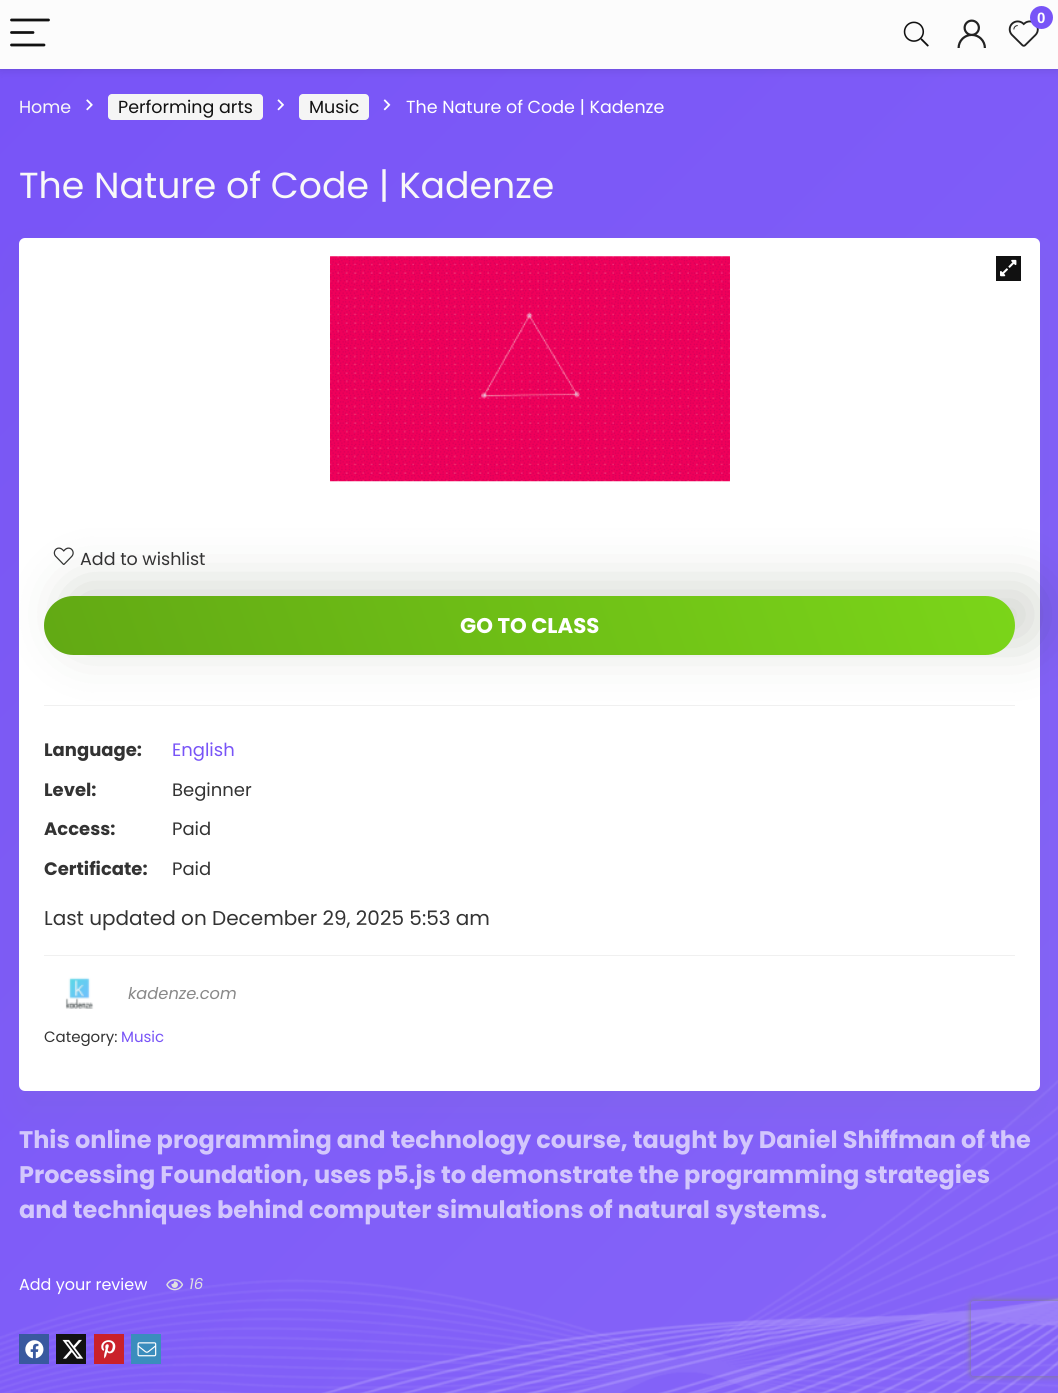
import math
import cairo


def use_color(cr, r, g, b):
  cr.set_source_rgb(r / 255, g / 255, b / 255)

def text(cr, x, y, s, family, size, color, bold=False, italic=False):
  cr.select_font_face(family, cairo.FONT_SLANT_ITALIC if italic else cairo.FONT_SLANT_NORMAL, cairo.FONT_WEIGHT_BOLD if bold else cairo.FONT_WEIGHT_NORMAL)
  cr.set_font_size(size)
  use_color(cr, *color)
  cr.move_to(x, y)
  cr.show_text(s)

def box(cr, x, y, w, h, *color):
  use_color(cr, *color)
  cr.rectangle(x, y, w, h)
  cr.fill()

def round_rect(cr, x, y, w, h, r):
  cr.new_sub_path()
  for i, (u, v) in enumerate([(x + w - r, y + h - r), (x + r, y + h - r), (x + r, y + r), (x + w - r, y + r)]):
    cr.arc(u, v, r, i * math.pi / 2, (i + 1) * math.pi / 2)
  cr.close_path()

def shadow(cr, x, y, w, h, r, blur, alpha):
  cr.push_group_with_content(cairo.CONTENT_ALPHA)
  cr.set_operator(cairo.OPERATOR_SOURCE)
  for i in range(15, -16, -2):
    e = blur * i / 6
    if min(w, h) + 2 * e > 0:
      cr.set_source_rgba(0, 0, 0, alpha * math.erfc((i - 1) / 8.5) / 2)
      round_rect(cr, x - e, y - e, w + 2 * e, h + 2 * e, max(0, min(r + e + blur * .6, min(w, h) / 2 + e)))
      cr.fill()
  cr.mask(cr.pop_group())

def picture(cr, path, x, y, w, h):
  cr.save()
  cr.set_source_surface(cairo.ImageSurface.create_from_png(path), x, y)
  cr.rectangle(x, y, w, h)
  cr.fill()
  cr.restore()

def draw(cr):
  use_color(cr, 255, 255, 255)
  cr.paint()
  gradient = cairo.LinearGradient(-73, 142, 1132, 1348)
  gradient.add_color_stop_rgba(0, 0.471, 0.329, 0.969, 1)
  gradient.add_color_stop_rgba(1, 0.525, 0.396, 0.973, 1)
  cr.set_source(gradient)
  cr.rectangle(0, 69, 1058, 1324)
  cr.fill()
  cr.rectangle(-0.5, -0.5, 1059, 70)
  cr.set_source_rgba(0, 0, 0, 0.03)
  cr.set_line_width(1)
  cr.stroke()
  use_color(cr, 0, 0, 0)
  shadow(cr, 0, 1, 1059, 69, 0, 5, 0.1)
  box(cr, 0, 0, 1058, 69, 252, 252, 252)
  cr.new_path()
  cr.move_to(11.5, 20)
  cr.line_to(48.5, 20)
  cr.move_to(11.5, 32.5)
  cr.line_to(33, 32.5)
  cr.move_to(11.5, 45)
  cr.line_to(44, 45)
  use_color(cr, 17, 17, 17)
  cr.set_line_width(2.8)
  cr.set_line_cap(cairo.LINE_CAP_ROUND)
  cr.stroke()
  picture(cr, "img_01.png", 903, 21, 26, 26)
  picture(cr, "img_02.png", 957, 19, 29, 29)
  picture(cr, "img_03.png", 1008, 20, 31, 27)
  use_color(cr, 120, 84, 247)
  cr.arc(1041.5, 17.5, 11.5, 0, 2 * math.pi)
  cr.fill()
  picture(cr, "img_04.png", 86, 99, 7, 12)
  use_color(cr, 245, 245, 245)
  round_rect(cr, 108, 94, 155, 26, 4)
  cr.fill()
  picture(cr, "img_05.png", 277, 99, 7, 12)
  round_rect(cr, 299, 94, 70, 26, 4)
  cr.fill()
  picture(cr, "img_06.png", 383, 99, 8, 12)
  use_color(cr, 119, 123, 146)
  shadow(cr, 19, 256, 1021, 854, 6, 19, 0.1)
  use_color(cr, 255, 255, 255)
  round_rect(cr, 19, 238, 1021, 853, 6)
  cr.fill()
  picture(cr, "img_07.png", 330, 256, 400, 226)
  box(cr, 996, 256, 25, 25, 17, 17, 17)
  picture(cr, "img_08.png", 1000, 259, 17, 18)
  picture(cr, "img_09.png", 53, 547, 21, 18)
  box(cr, 44, 705, 971, 1, 240, 240, 240)
  use_color(cr, 22, 39, 5)
  shadow(cr, 68, 585, 971, 59, 29.5, 26.5, 0.18)
  gradient = cairo.LinearGradient(91, 785, 968, 466)
  gradient.add_color_stop_rgba(0, 0.384, 0.663, 0.078, 1)
  gradient.add_color_stop_rgba(1, 0.482, 0.835, 0.098, 1)
  cr.set_source(gradient)
  round_rect(cr, 44, 596, 971, 59, 29.5)
  cr.fill()
  box(cr, 44, 955, 971, 1, 240, 240, 240)
  picture(cr, "img_10.png", 65, 977, 29, 32)
  picture(cr, "img_11.png", 166, 1279, 18, 12)
  text(cr, 1037, 23, "0", "Liberation Sans", 15, (255, 255, 255), bold=True)
  text(cr, 19, 113, "Home", "Poppins", 17.5, (248, 248, 248))
  text(cr, 118, 113, "Performing arts", "Poppins", 17.5, (17, 17, 17))
  text(cr, 309, 113, "Music", "Poppins", 17.5, (17, 17, 17))
  text(cr, 406, 113, "The Nature of Code | Kadenze", "Poppins", 17.5, (255, 255, 255))
  text(cr, 19, 198, "The Nature of Code | Kadenze", "Poppins", 36.25, (248, 248, 248))
  text(cr, 80, 565, "Add to wishlist", "Poppins", 17.5, (51, 51, 51))
  text(cr, 460, 633, "GO TO CLASS", "Poppins", 21.25, (255, 255, 255), bold=True)
  text(cr, 44, 756, "Language:", "Poppins", 18, (51, 51, 51), bold=True)
  text(cr, 172, 756, "English", "Poppins", 18, (120, 84, 247))
  text(cr, 44, 796, "Level:", "Poppins", 18, (51, 51, 51), bold=True)
  text(cr, 172, 796, "Beginner", "Poppins", 18, (51, 51, 51))
  text(cr, 44, 835, "Access:", "Poppins", 18, (51, 51, 51), bold=True)
  text(cr, 172, 835, "Paid", "Poppins", 18, (51, 51, 51))
  text(cr, 44, 875, "Certificate:", "Poppins", 18, (51, 51, 51), bold=True)
  text(cr, 172, 875, "Paid", "Poppins", 18, (51, 51, 51))
  text(cr, 44, 925, "Last updated on December 29, 2025 5:53 am", "Poppins", 20, (51, 51, 51))
  text(cr, 128, 999, "kadenze.com", "Poppins", 16.25, (136, 136, 136), italic=True)
  text(cr, 44, 1042, "Category:", "Poppins", 15, (51, 51, 51))
  text(cr, 121, 1042, "Music", "Poppins", 15, (120, 84, 247))
  text(cr, 19, 1148, "This online programming and technology course, taught by Daniel Shiffman of the", "Poppins", 24, (211, 199, 252), bold=True)
  text(cr, 19, 1183, "Processing Foundation, uses p5.js to demonstrate the programming strategies", "Poppins", 24, (211, 199, 252), bold=True)
  text(cr, 19, 1218, "and techniques behind computer simulations of natural systems.", "Poppins", 24, (211, 199, 252), bold=True)
  text(cr, 19, 1290, "Add your review", "Poppins", 16, (255, 255, 255))
  text(cr, 189, 1289, "16", "Poppins", 15, (224, 224, 224), italic=True)
  picture(cr, "img_16.png", 0, 1080, 1058, 313)
  box(cr, 131, 1334, 30, 30, 59, 141, 189)
  picture(cr, "img_15.png", 137, 1342, 20, 15)
  box(cr, 94, 1334, 30, 30, 202, 33, 42)
  picture(cr, "img_14.png", 101, 1340, 15, 19)
  box(cr, 56, 1334, 30, 30, 17, 17, 17)
  picture(cr, "img_13.png", 62, 1339, 22, 20)
  box(cr, 19, 1334, 30, 30, 57, 89, 159)
  picture(cr, "img_12.png", 25, 1340, 19, 19)
  cr.save()
  cr.set_fill_rule(cairo.FILL_RULE_EVEN_ODD)
  cr.new_path()
  cr.move_to(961, 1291)
  cr.line_to(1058, 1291)
  cr.line_to(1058, 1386)
  cr.line_to(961, 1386)
  cr.close_path()
  cr.move_to(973.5, 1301)
  cr.line_to(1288.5, 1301)
  cr.curve_to(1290, 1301, 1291, 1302, 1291, 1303.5)
  cr.line_to(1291, 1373.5)
  cr.curve_to(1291, 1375, 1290, 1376, 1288.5, 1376)
  cr.line_to(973.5, 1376)
  cr.curve_to(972, 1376, 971, 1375, 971, 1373.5)
  cr.line_to(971, 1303.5)
  cr.curve_to(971, 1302, 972, 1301, 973.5, 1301)
  cr.close_path()
  cr.clip()
  use_color(cr, 128, 128, 128)
  shadow(cr, 971, 1301, 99, 75, 2.5, 3, 1)
  cr.restore()


surface = cairo.ImageSurface(cairo.FORMAT_RGB24, 1058, 1393)
cr = cairo.Context(surface)
options = cairo.FontOptions()
options.set_hint_metrics(cairo.HINT_METRICS_OFF)
options.set_hint_style(cairo.HINT_STYLE_NONE)
cr.set_font_options(options)
cr.set_miter_limit(4)
draw(cr)
surface.write_to_png("out.png")
